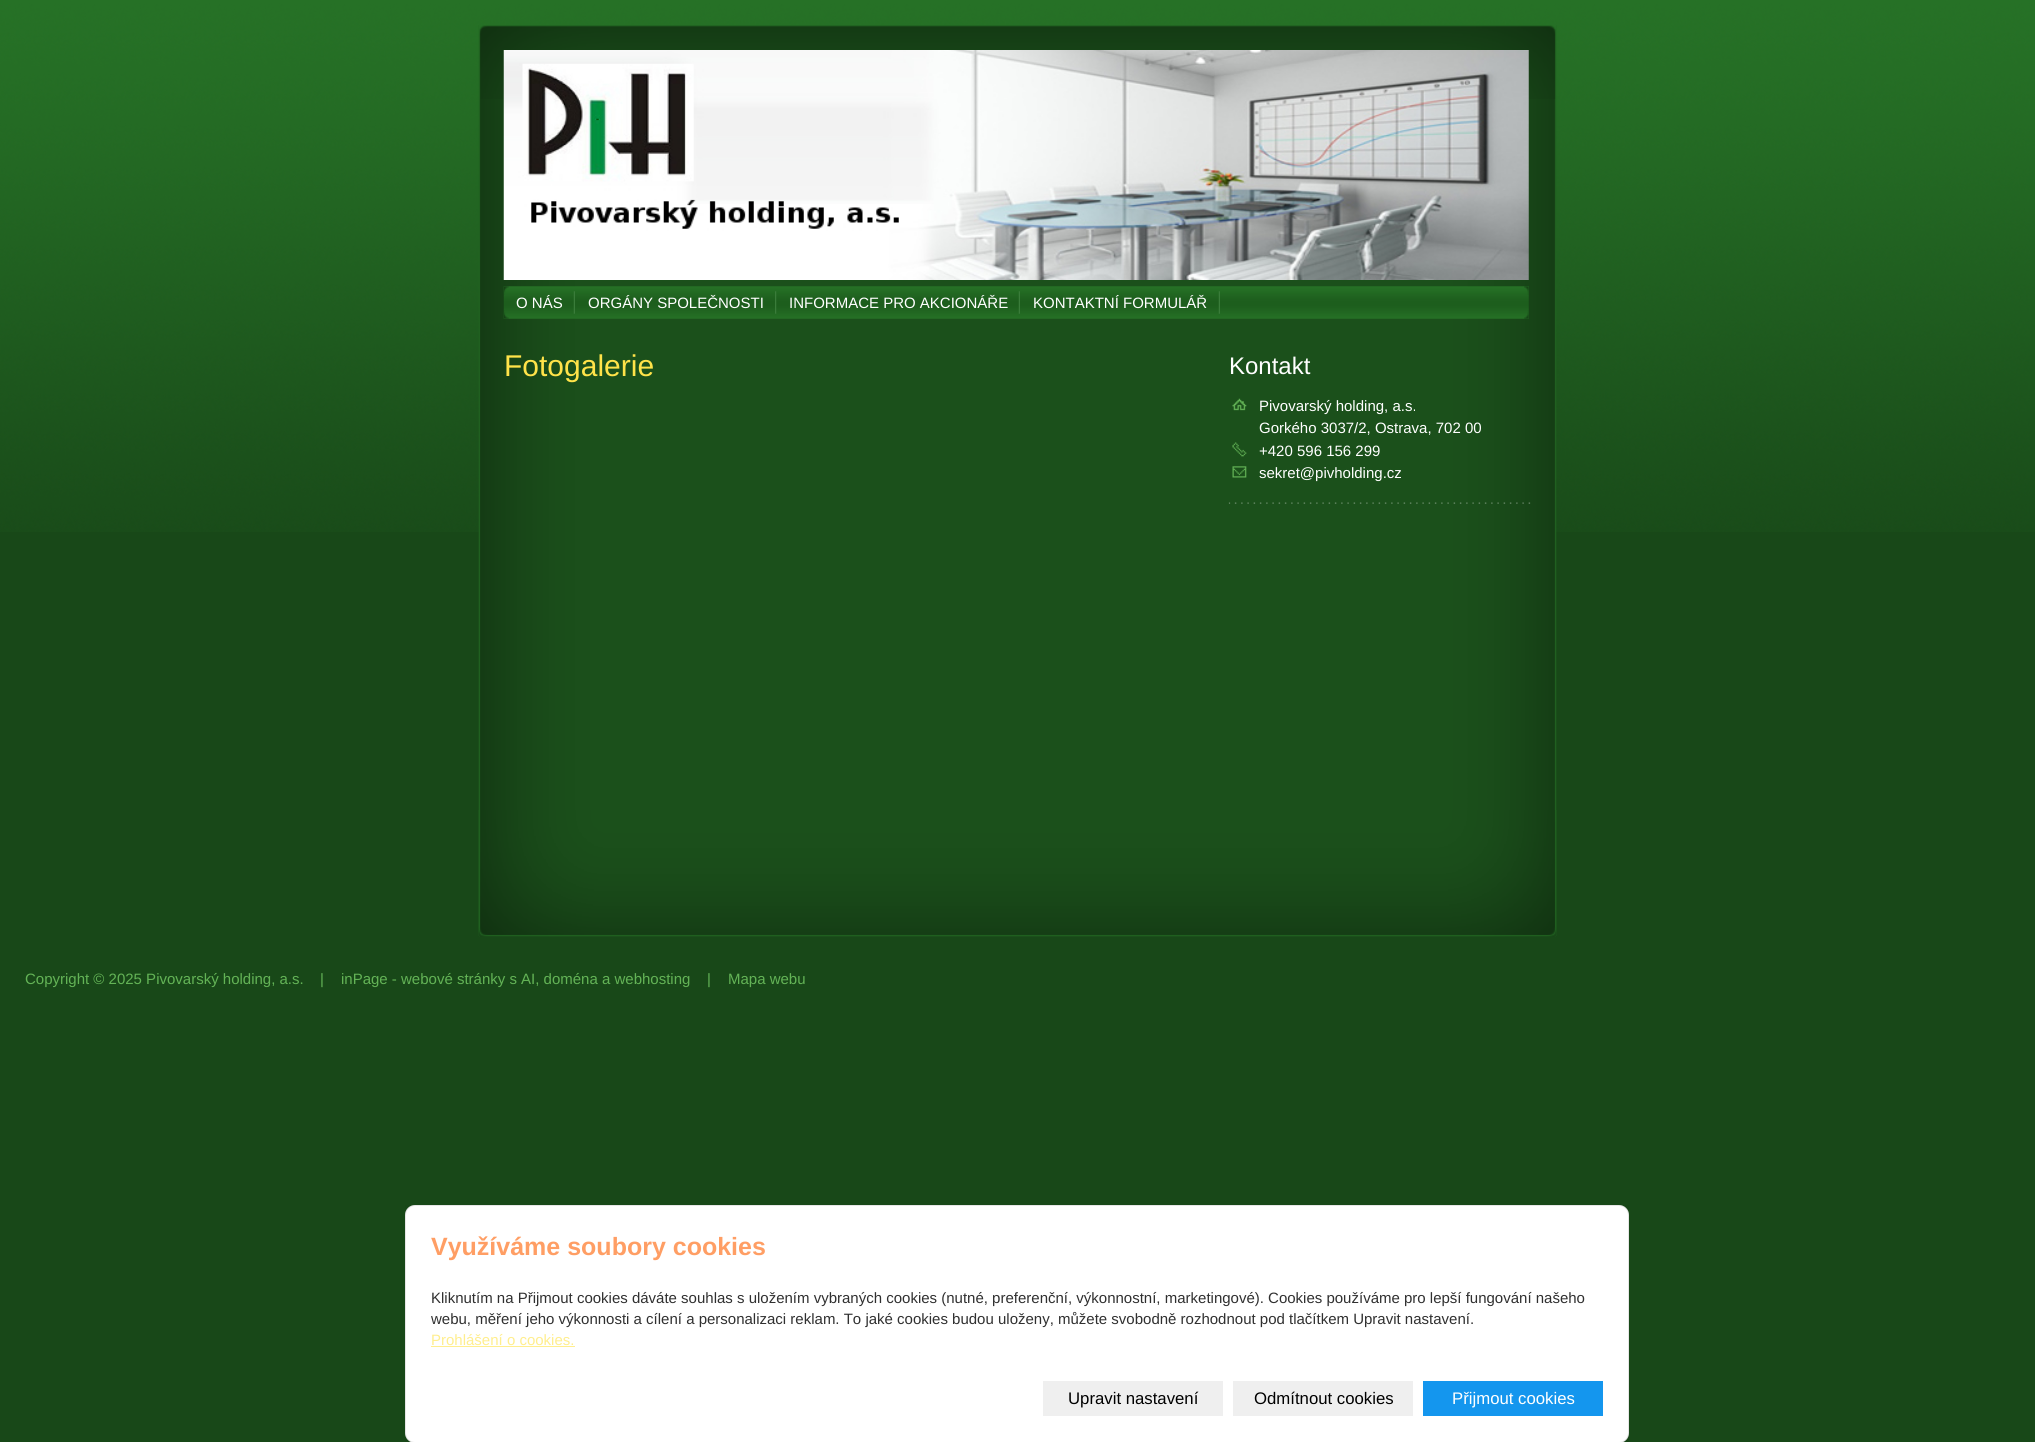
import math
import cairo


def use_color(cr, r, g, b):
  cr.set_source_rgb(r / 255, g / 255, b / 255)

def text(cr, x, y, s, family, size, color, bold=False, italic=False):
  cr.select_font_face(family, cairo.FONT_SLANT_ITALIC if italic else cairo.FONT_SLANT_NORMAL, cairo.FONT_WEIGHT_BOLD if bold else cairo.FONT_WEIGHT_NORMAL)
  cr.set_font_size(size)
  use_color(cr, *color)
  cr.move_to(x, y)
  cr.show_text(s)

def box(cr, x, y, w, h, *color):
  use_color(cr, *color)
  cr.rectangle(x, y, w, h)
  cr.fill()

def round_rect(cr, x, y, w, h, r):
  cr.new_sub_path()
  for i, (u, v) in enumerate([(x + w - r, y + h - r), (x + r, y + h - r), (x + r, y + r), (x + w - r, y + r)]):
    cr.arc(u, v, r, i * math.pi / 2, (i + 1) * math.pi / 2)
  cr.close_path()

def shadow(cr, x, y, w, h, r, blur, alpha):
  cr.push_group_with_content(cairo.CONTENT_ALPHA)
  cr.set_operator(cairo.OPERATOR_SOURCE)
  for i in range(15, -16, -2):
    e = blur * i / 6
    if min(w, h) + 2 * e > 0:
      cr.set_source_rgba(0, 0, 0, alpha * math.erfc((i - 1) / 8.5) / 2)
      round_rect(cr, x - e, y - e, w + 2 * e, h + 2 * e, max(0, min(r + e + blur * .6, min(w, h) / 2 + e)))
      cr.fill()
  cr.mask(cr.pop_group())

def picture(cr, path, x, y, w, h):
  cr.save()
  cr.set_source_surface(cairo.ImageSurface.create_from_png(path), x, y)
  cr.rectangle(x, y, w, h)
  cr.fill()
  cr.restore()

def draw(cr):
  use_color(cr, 24, 72, 24)
  cr.paint()
  picture(cr, "img_01.png", 0, 0, 2035, 532)
  picture(cr, "img_03.png", 478, 25, 1079, 912)
  picture(cr, "img_04.png", 479, 25, 1077, 74)
  picture(cr, "img_02.png", 503, 50, 1026, 230)
  picture(cr, "img_05.png", 478, 810, 1079, 127)
  picture(cr, "img_06.png", 503, 286, 1026, 33)
  picture(cr, "img_07.png", 504, 286, 5, 33)
  picture(cr, "img_08.png", 573, 291, 2, 23)
  picture(cr, "img_09.png", 775, 291, 2, 23)
  picture(cr, "img_08.png", 1018, 291, 2, 23)
  picture(cr, "img_08.png", 1218, 291, 2, 23)
  picture(cr, "img_10.png", 1524, 286, 5, 33)
  picture(cr, "img_11.png", 1232, 398, 15, 13)
  picture(cr, "img_12.png", 1232, 442, 15, 15)
  picture(cr, "img_13.png", 1232, 466, 15, 12)
  picture(cr, "img_14.png", 1228, 502, 303, 2)
  cr.save()
  cr.rectangle(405, 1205, 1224, 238)
  cr.clip()
  use_color(cr, 0, 0, 0)
  shadow(cr, 418, 1220, 1198, 213, 0, 12.5, 0.5)
  cr.restore()
  use_color(cr, 255, 255, 255)
  round_rect(cr, 405, 1205, 1224, 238, 10)
  cr.fill()
  round_rect(cr, 405.5, 1205.5, 1223, 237, 9.5)
  cr.set_source_rgba(0, 0, 0, 0.1)
  cr.set_line_width(1)
  cr.stroke()
  box(cr, 431, 1346, 144, 1, 255, 238, 142)
  box(cr, 1043, 1381, 180, 35, 239, 239, 239)
  box(cr, 1233, 1381, 180, 35, 239, 239, 239)
  box(cr, 1423, 1381, 180, 35, 20, 150, 238)
  text(cr, 516, 308, "O NÁS", "Liberation Sans", 15, (255, 255, 255))
  text(cr, 588, 308, "ORGÁNY SPOLEČNOSTI", "Liberation Sans", 15, (255, 255, 255))
  text(cr, 789, 308, "INFORMACE PRO AKCIONÁŘE", "Liberation Sans", 15, (255, 255, 255))
  text(cr, 1033, 308, "KONTAKTNÍ FORMULÁŘ", "Liberation Sans", 15, (255, 255, 255))
  text(cr, 504, 376, "Fotogalerie", "Liberation Sans", 30, (255, 227, 73))
  text(cr, 1229, 374, "Kontakt", "Liberation Sans", 24, (255, 255, 255))
  text(cr, 1259, 411, "Pivovarský holding, a.s.", "Liberation Sans", 15, (255, 255, 255))
  text(cr, 1259, 433, "Gorkého 3037/2, Ostrava, 702 00", "Liberation Sans", 15, (255, 255, 255))
  text(cr, 1259, 456, "+420 596 156 299", "Liberation Sans", 15, (255, 255, 255))
  text(cr, 1259, 478, "sekret@pivholding.cz", "Liberation Sans", 15, (255, 255, 255))
  text(cr, 25, 984, "Copyright © 2025 Pivovarský holding, a.s.", "Liberation Sans", 15, (99, 179, 86))
  text(cr, 320, 984, "|", "Liberation Sans", 15, (99, 179, 86))
  text(cr, 341, 984, "inPage - webové stránky s AI, doména a webhosting", "Liberation Sans", 15, (99, 179, 86))
  text(cr, 707, 984, "|", "Liberation Sans", 15, (99, 179, 86))
  text(cr, 728, 984, "Mapa webu", "Liberation Sans", 15, (99, 179, 86))
  text(cr, 431, 1255, "Využíváme soubory cookies", "Liberation Sans", 25, (255, 158, 100), bold=True)
  text(cr, 431, 1303, "Kliknutím na Přijmout cookies dáváte souhlas s uložením vybraných cookies (nutné, preferenční, výkonnostní, marketingové). Cookies používáme pro lepší fungování našeho", "Liberation Sans", 15, (48, 48, 48))
  text(cr, 431, 1324, "webu, měření jeho výkonnosti a cílení a personalizaci reklam. To jaké cookies budou uloženy, můžete svobodně rozhodnout pod tlačítkem Upravit nastavení.", "Liberation Sans", 15, (48, 48, 48))
  text(cr, 431, 1345, "Prohlášení o cookies.", "Liberation Sans", 15, (255, 238, 142))
  text(cr, 1068, 1404, "Upravit nastavení", "Liberation Sans", 16.75, (0, 0, 0))
  text(cr, 1254, 1404, "Odmítnout cookies", "Liberation Sans", 16.75, (0, 0, 0))
  text(cr, 1452, 1404, "Přijmout cookies", "Liberation Sans", 16.75, (255, 255, 255))


surface = cairo.ImageSurface(cairo.FORMAT_RGB24, 2035, 1442)
cr = cairo.Context(surface)
options = cairo.FontOptions()
options.set_hint_metrics(cairo.HINT_METRICS_OFF)
options.set_hint_style(cairo.HINT_STYLE_NONE)
cr.set_font_options(options)
cr.set_miter_limit(4)
draw(cr)
surface.write_to_png("out.png")
